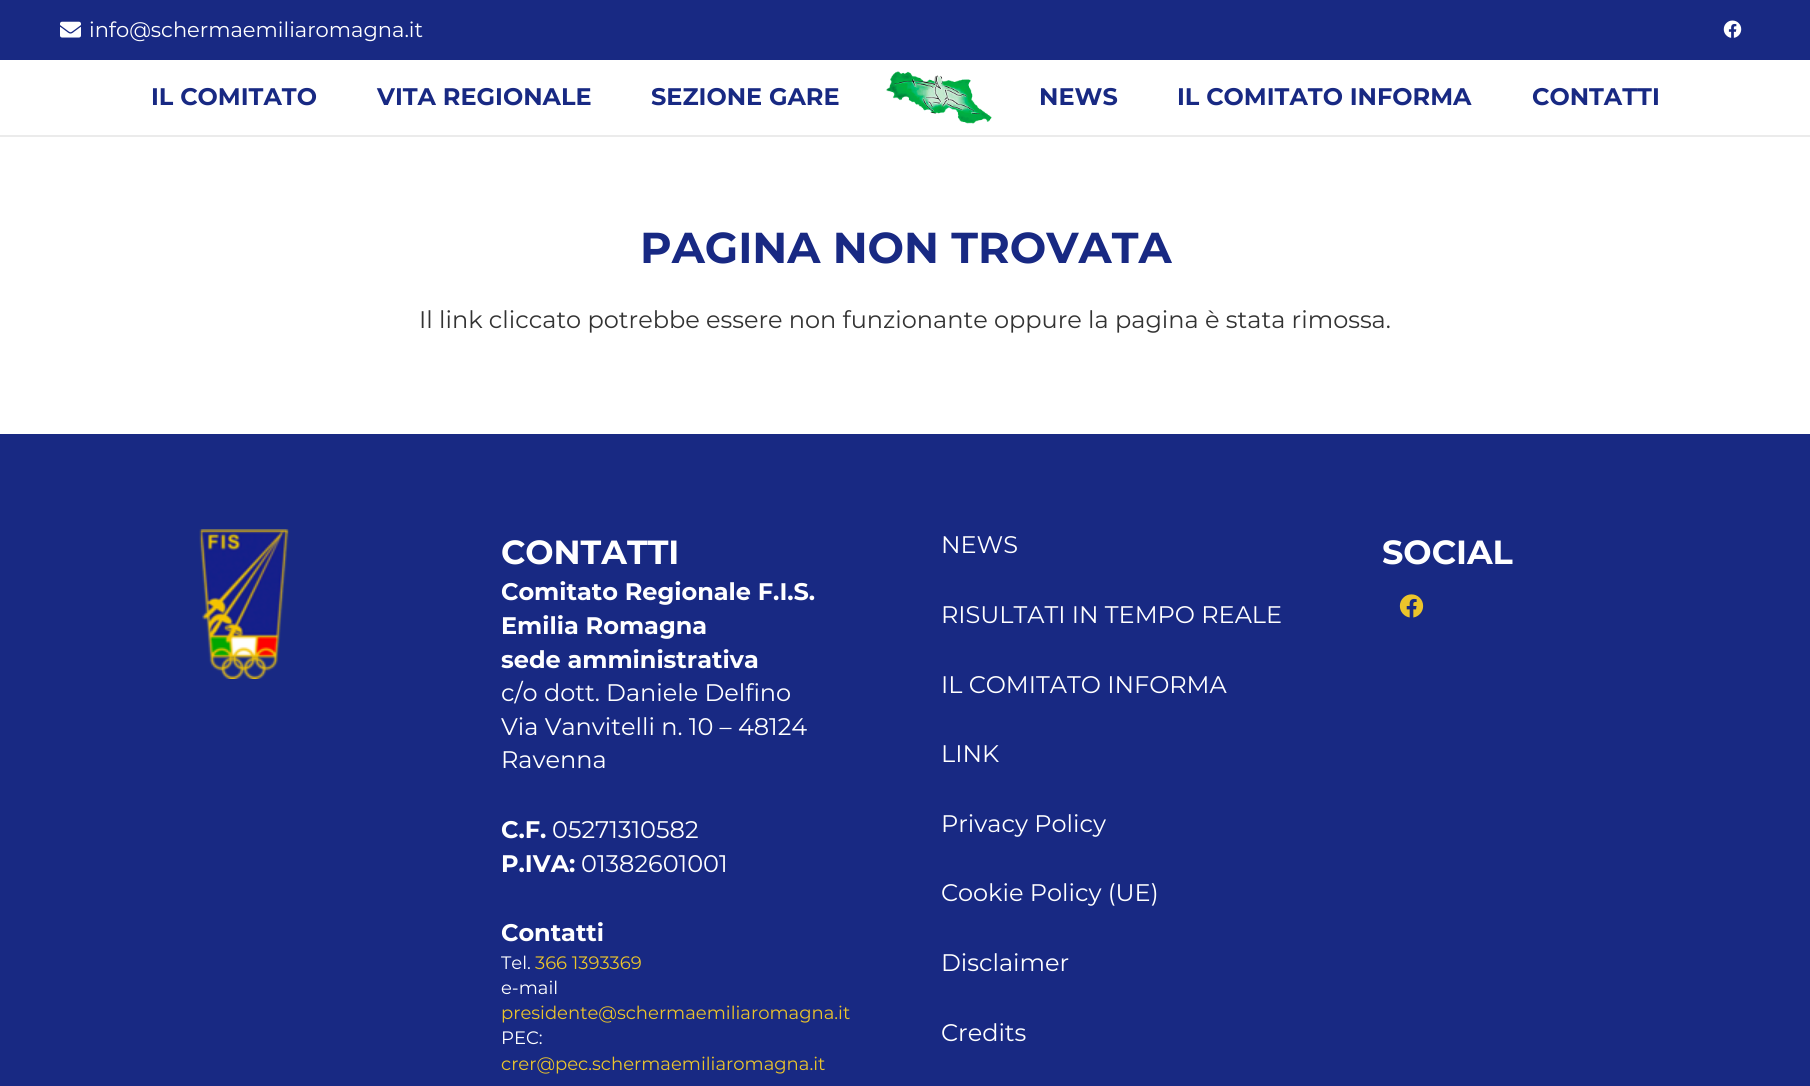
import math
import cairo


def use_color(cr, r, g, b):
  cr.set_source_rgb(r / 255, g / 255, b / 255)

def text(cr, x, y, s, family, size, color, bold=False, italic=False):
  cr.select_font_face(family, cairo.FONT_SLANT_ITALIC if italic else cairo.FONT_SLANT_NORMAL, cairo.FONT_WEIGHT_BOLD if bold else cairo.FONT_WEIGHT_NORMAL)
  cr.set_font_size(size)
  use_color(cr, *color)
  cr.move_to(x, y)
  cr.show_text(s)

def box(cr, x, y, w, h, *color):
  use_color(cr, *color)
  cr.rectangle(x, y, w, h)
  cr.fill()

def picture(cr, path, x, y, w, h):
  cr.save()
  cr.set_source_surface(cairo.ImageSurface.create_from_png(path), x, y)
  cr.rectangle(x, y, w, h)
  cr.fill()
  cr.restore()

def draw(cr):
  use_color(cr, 255, 255, 255)
  cr.paint()
  box(cr, 0, 0, 1810, 60, 24, 41, 131)
  picture(cr, "img_01.png", 60, 21, 21, 17)
  picture(cr, "img_02.png", 1723, 20, 19, 18)
  use_color(cr, 235, 235, 235)
  cr.new_path()
  cr.move_to(0, 135)
  cr.line_to(0, 137)
  cr.line_to(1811, 137)
  cr.line_to(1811, 62)
  cr.line_to(1810, 62)
  cr.line_to(1810, 135)
  cr.close_path()
  cr.fill()
  picture(cr, "img_03.png", 886, 71, 106, 53)
  box(cr, 0, 434, 1810, 652, 24, 41, 131)
  picture(cr, "img_04.png", 199, 529, 90, 150)
  picture(cr, "img_05.png", 1399, 594, 25, 24)
  text(cr, 89, 37, "info@schermaemiliaromagna.it", "Montserrat", 21, (255, 255, 255))
  text(cr, 151, 105, "IL COMITATO", "Montserrat", 24, (24, 41, 131), bold=True)
  text(cr, 377, 105, "VITA REGIONALE", "Montserrat", 24, (24, 41, 131), bold=True)
  text(cr, 651, 105, "SEZIONE GARE", "Montserrat", 24, (24, 41, 131), bold=True)
  text(cr, 1039, 105, "NEWS", "Montserrat", 24, (24, 41, 131), bold=True)
  text(cr, 1177, 105, "IL COMITATO INFORMA", "Montserrat", 24, (24, 41, 131), bold=True)
  text(cr, 1532, 105, "CONTATTI", "Montserrat", 24, (24, 41, 131), bold=True)
  text(cr, 640, 263, "PAGINA NON TROVATA", "Montserrat", 43.25, (24, 41, 131), bold=True)
  text(cr, 419, 328, "Il link cliccato potrebbe essere non funzionante oppure la pagina è stata rimossa.", "Montserrat", 24, (51, 51, 51))
  text(cr, 501, 564, "CONTATTI", "Montserrat", 33.5, (255, 255, 255), bold=True)
  text(cr, 501, 600, "Comitato Regionale F.I.S.", "Montserrat", 24, (255, 255, 255), bold=True)
  text(cr, 501, 634, "Emilia Romagna", "Montserrat", 24, (255, 255, 255), bold=True)
  text(cr, 501, 668, "sede amministrativa", "Montserrat", 24, (255, 255, 255), bold=True)
  text(cr, 501, 701, "c/o dott. Daniele Delfino", "Montserrat", 24, (255, 255, 255))
  text(cr, 501, 735, "Via Vanvitelli n. 10 – 48124", "Montserrat", 24, (255, 255, 255))
  text(cr, 501, 768, "Ravenna", "Montserrat", 24, (255, 255, 255))
  text(cr, 501, 838, "C.F.", "Montserrat", 24, (255, 255, 255), bold=True)
  text(cr, 552, 838, "05271310582", "Montserrat", 24, (255, 255, 255))
  text(cr, 501, 872, "P.IVA:", "Montserrat", 24, (255, 255, 255), bold=True)
  text(cr, 581, 872, "01382601001", "Montserrat", 24, (255, 255, 255))
  text(cr, 501, 941, "Contatti", "Montserrat", 24, (255, 255, 255), bold=True)
  text(cr, 501, 969, "Tel.", "Montserrat", 18, (255, 255, 255))
  text(cr, 535, 969, "366 1393369", "Montserrat", 18, (235, 196, 43))
  text(cr, 501, 994, "e-mail", "Montserrat", 18, (255, 255, 255))
  text(cr, 501, 1019, "presidente@schermaemiliaromagna.it", "Montserrat", 18, (235, 196, 43))
  text(cr, 501, 1044, "PEC:", "Montserrat", 18, (255, 255, 255))
  text(cr, 501, 1070, "crer@pec.schermaemiliaromagna.it", "Montserrat", 18, (235, 196, 43))
  text(cr, 941, 553, "NEWS", "Montserrat", 24, (255, 255, 255))
  text(cr, 941, 623, "RISULTATI IN TEMPO REALE", "Montserrat", 24, (255, 255, 255))
  text(cr, 941, 693, "IL COMITATO INFORMA", "Montserrat", 24, (255, 255, 255))
  text(cr, 941, 762, "LINK", "Montserrat", 24, (255, 255, 255))
  text(cr, 941, 832, "Privacy Policy", "Montserrat", 24, (255, 255, 255))
  text(cr, 941, 901, "Cookie Policy (UE)", "Montserrat", 24, (255, 255, 255))
  text(cr, 941, 971, "Disclaimer", "Montserrat", 24, (255, 255, 255))
  text(cr, 941, 1041, "Credits", "Montserrat", 24, (255, 255, 255))
  text(cr, 1382, 564, "SOCIAL", "Montserrat", 33.5, (255, 255, 255), bold=True)


surface = cairo.ImageSurface(cairo.FORMAT_RGB24, 1810, 1086)
cr = cairo.Context(surface)
options = cairo.FontOptions()
options.set_hint_metrics(cairo.HINT_METRICS_OFF)
options.set_hint_style(cairo.HINT_STYLE_NONE)
cr.set_font_options(options)
cr.set_miter_limit(4)
draw(cr)
surface.write_to_png("out.png")
